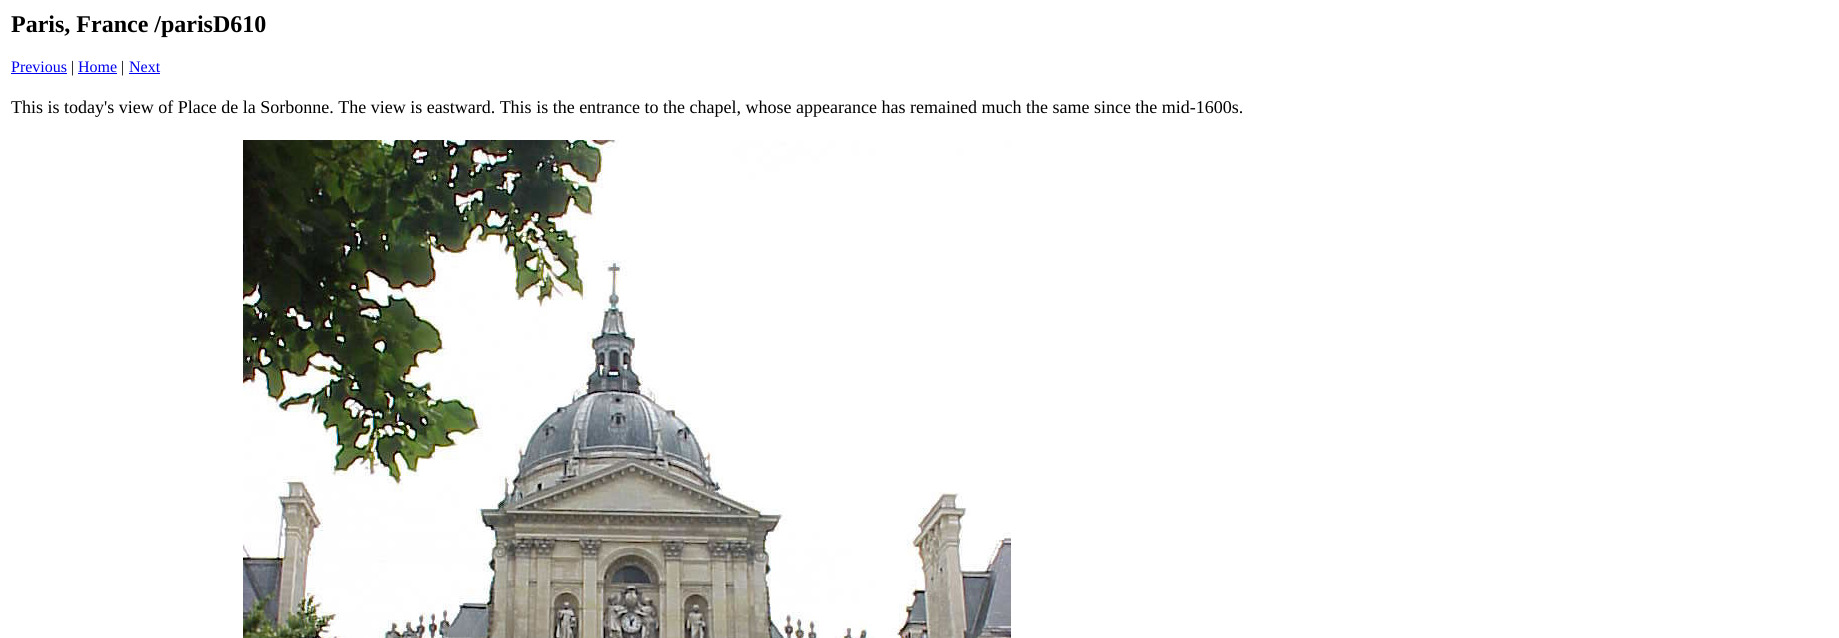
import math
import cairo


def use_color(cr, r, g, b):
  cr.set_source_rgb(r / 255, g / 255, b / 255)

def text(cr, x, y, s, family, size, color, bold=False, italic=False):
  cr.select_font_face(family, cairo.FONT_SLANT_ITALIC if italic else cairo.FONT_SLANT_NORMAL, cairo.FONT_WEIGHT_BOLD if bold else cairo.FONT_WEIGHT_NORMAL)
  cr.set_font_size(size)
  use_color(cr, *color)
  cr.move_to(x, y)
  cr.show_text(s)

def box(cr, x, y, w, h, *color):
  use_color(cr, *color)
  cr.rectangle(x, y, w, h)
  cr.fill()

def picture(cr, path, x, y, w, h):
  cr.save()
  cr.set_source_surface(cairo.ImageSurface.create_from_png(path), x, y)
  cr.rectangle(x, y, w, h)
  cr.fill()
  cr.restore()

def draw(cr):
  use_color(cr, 255, 255, 255)
  cr.paint()
  box(cr, 11, 73, 56, 1, 0, 0, 238)
  box(cr, 78, 73, 39, 1, 0, 0, 238)
  box(cr, 129, 73, 31, 1, 0, 0, 238)
  picture(cr, "img_01.png", 243, 140, 768, 498)
  text(cr, 11, 32, "Paris, France /parisD610", "Liberation Serif", 24, (0, 0, 0), bold=True)
  text(cr, 11, 72, "Previous", "Liberation Serif", 16, (0, 0, 238))
  text(cr, 71, 72, "|", "Liberation Serif", 16, (0, 0, 0))
  text(cr, 78, 72, "Home", "Liberation Serif", 16, (0, 0, 238))
  text(cr, 121, 72, "|", "Liberation Serif", 16, (0, 0, 0))
  text(cr, 129, 72, "Next", "Liberation Serif", 16, (0, 0, 238))
  text(cr, 11, 113, "This is today's view of Place de la Sorbonne. The view is eastward. This is the entrance to the chapel, whose appearance has remained much the same since the mid-1600s.", "Liberation Serif", 18, (0, 0, 0))


surface = cairo.ImageSurface(cairo.FORMAT_RGB24, 1839, 638)
cr = cairo.Context(surface)
options = cairo.FontOptions()
options.set_hint_metrics(cairo.HINT_METRICS_OFF)
options.set_hint_style(cairo.HINT_STYLE_NONE)
cr.set_font_options(options)
cr.set_miter_limit(4)
draw(cr)
surface.write_to_png("out.png")
